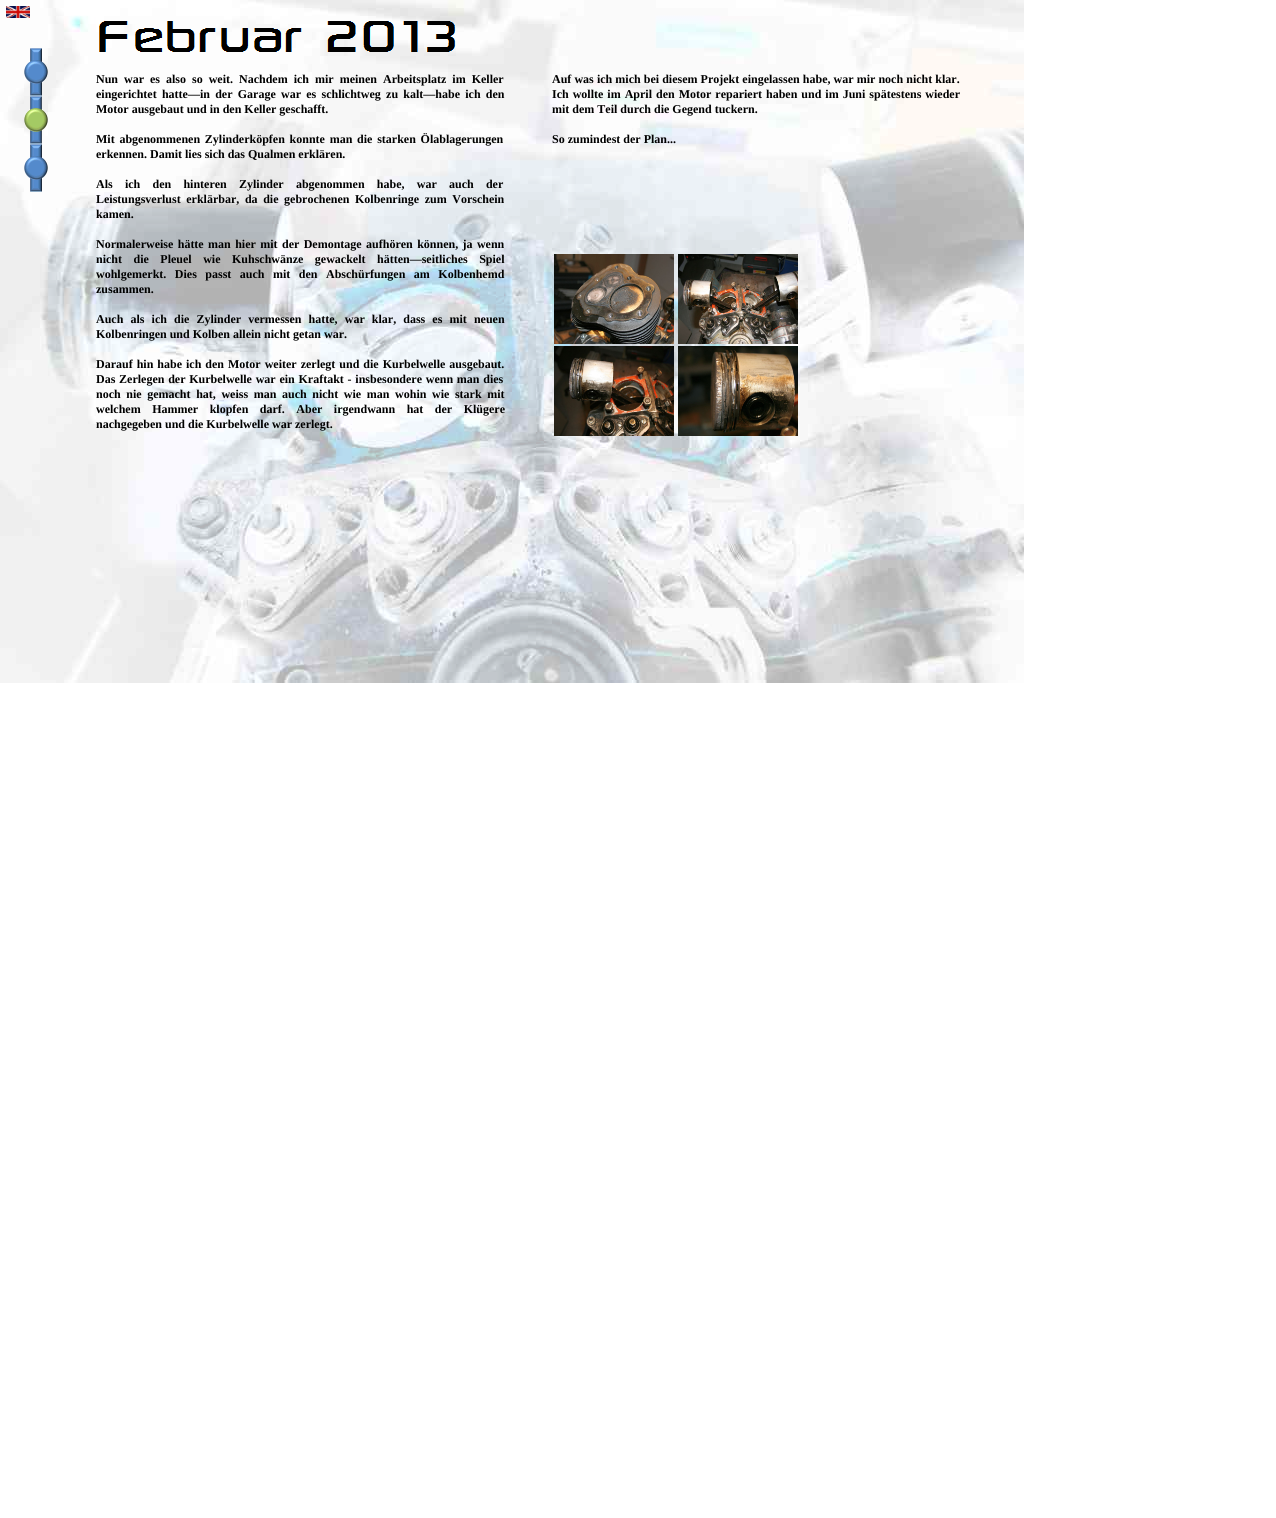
import math
import cairo


def use_color(cr, r, g, b):
  cr.set_source_rgb(r / 255, g / 255, b / 255)

def text(cr, x, y, s, family, size, color, bold=False, italic=False):
  cr.select_font_face(family, cairo.FONT_SLANT_ITALIC if italic else cairo.FONT_SLANT_NORMAL, cairo.FONT_WEIGHT_BOLD if bold else cairo.FONT_WEIGHT_NORMAL)
  cr.set_font_size(size)
  use_color(cr, *color)
  cr.move_to(x, y)
  cr.show_text(s)

def spaced_text(cr, x, y, s, letter, word):
  cr.move_to(x, y)
  for ch in s:
    cr.show_text(ch)
    cr.rel_move_to(letter + word * (ch == ' '), 0)

def picture(cr, path, x, y, w, h):
  cr.save()
  cr.set_source_surface(cairo.ImageSurface.create_from_png(path), x, y)
  cr.rectangle(x, y, w, h)
  cr.fill()
  cr.restore()

def draw(cr):
  use_color(cr, 255, 255, 255)
  cr.paint()
  picture(cr, "img_01.png", 0, 0, 1024, 683)
  picture(cr, "img_02.png", 6, 6, 24, 12)
  picture(cr, "img_03.png", 99, 21, 357, 31)
  picture(cr, "img_04.png", 24, 48, 24, 48)
  picture(cr, "img_05.png", 24, 96, 24, 48)
  picture(cr, "img_06.png", 24, 144, 24, 48)
  picture(cr, "img_07.png", 554, 254, 120, 90)
  picture(cr, "img_08.png", 678, 254, 120, 90)
  picture(cr, "img_09.png", 554, 346, 120, 90)
  picture(cr, "img_10.png", 678, 346, 120, 90)
  cr.select_font_face("Liberation Serif", cairo.FONT_SLANT_NORMAL, cairo.FONT_WEIGHT_BOLD)
  cr.set_font_size(12)
  use_color(cr, 0, 0, 0)
  spaced_text(cr, 96, 83, "Nun war es also so weit. Nachdem ich mir meinen Arbeitsplatz im Keller", 0, 3)
  spaced_text(cr, 96, 98, "eingerichtet hatte—in der Garage war es schlichtweg zu kalt—habe ich den", 0, 2.25)
  text(cr, 96, 113, "Motor ausgebaut und in den Keller geschafft.", "Liberation Serif", 12, (0, 0, 0), bold=True)
  spaced_text(cr, 96, 143, "Mit abgenommenen Zylinderköpfen konnte man die starken Ölablagerungen", 0, 1.75)
  text(cr, 96, 158, "erkennen. Damit lies sich das Qualmen erklären.", "Liberation Serif", 12, (0, 0, 0), bold=True)
  spaced_text(cr, 96, 188, "Als ich den hinteren Zylinder abgenommen habe, war auch der", 0, 9.25)
  spaced_text(cr, 96, 203, "Leistungsverlust erklärbar, da die gebrochenen Kolbenringe zum Vorschein", 0, 2.6)
  text(cr, 96, 218, "kamen.", "Liberation Serif", 12, (0, 0, 0), bold=True)
  spaced_text(cr, 96, 248, "Normalerweise hätte man hier mit der Demontage aufhören können, ja wenn", 0, 1.4)
  spaced_text(cr, 96, 263, "nicht die Pleuel wie Kuhschwänze gewackelt hätten—seitliches Spiel", 0, 8.5)
  spaced_text(cr, 96, 278, "wohlgemerkt. Dies passt auch mit den Abschürfungen am Kolbenhemd", 0, 5.5)
  text(cr, 96, 293, "zusammen.", "Liberation Serif", 12, (0, 0, 0), bold=True)
  spaced_text(cr, 96, 323, "Auch als ich die Zylinder vermessen hatte, war klar, dass es mit neuen", 0, 4.1)
  text(cr, 96, 338, "Kolbenringen und Kolben allein nicht getan war.", "Liberation Serif", 12, (0, 0, 0), bold=True)
  spaced_text(cr, 96, 368, "Darauf hin habe ich den Motor weiter zerlegt und die Kurbelwelle ausgebaut.", 0, 1)
  spaced_text(cr, 96, 383, "Das Zerlegen der Kurbelwelle war ein Kraftakt - insbesondere wenn man dies", 0, 0.75)
  spaced_text(cr, 96, 398, "noch nie gemacht hat, weiss man auch nicht wie man wohin wie stark mit", 0, 2.6)
  spaced_text(cr, 96, 413, "welchem Hammer klopfen darf. Aber irgendwann hat der Klügere", 0, 8.5)
  text(cr, 96, 428, "nachgegeben und die Kurbelwelle war zerlegt.", "Liberation Serif", 12, (0, 0, 0), bold=True)
  spaced_text(cr, 552, 83, "Auf was ich mich bei diesem Projekt eingelassen habe, war mir noch nicht klar.", 0, 0.1)
  spaced_text(cr, 552, 98, "Ich wollte im April den Motor repariert haben und im Juni spätestens wieder", 0, 1)
  text(cr, 552, 113, "mit dem Teil durch die Gegend tuckern.", "Liberation Serif", 12, (0, 0, 0), bold=True)
  text(cr, 552, 143, "So zumindest der Plan...", "Liberation Serif", 12, (0, 0, 0), bold=True)


surface = cairo.ImageSurface(cairo.FORMAT_RGB24, 1276, 1518)
cr = cairo.Context(surface)
options = cairo.FontOptions()
options.set_hint_metrics(cairo.HINT_METRICS_OFF)
options.set_hint_style(cairo.HINT_STYLE_NONE)
cr.set_font_options(options)
cr.set_miter_limit(4)
draw(cr)
surface.write_to_png("out.png")
